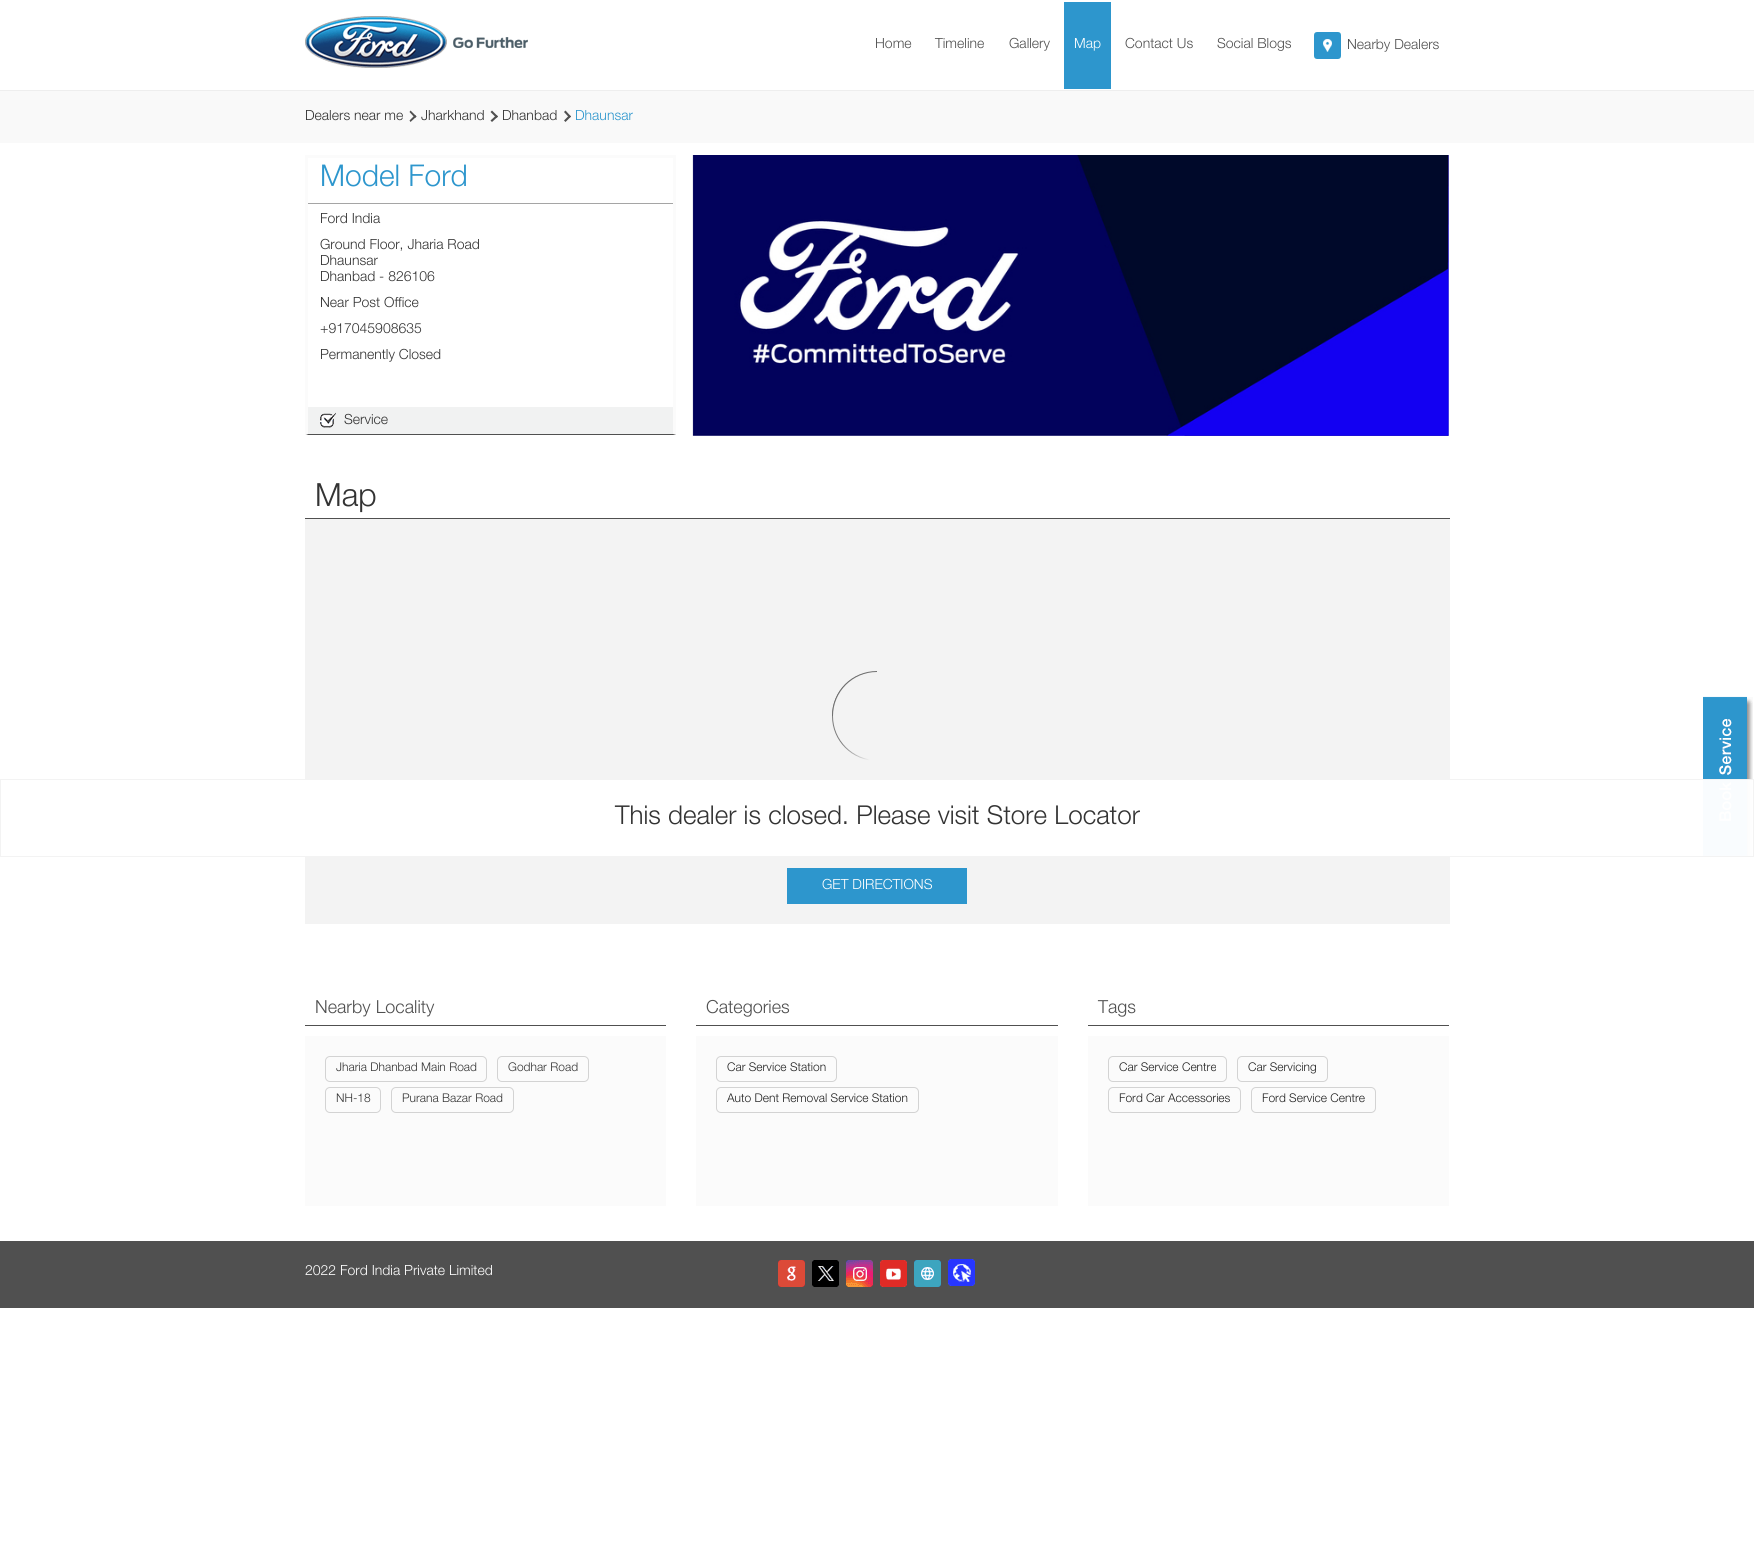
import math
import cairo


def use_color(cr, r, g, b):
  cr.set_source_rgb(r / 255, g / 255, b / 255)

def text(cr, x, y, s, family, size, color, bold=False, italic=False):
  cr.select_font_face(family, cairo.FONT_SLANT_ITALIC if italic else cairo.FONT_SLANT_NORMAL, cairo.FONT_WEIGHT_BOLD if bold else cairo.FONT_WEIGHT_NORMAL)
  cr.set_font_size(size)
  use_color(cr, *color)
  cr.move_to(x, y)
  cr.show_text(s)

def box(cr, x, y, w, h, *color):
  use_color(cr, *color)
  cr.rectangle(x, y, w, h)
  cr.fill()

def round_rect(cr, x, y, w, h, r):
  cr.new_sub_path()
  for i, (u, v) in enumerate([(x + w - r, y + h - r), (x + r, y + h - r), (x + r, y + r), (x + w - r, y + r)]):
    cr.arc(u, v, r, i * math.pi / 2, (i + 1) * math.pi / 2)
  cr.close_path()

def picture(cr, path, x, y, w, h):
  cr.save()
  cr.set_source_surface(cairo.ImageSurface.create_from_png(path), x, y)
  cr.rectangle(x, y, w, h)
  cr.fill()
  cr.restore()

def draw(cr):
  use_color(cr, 255, 255, 255)
  cr.paint()
  box(cr, 0, 90, 1754, 1, 238, 238, 238)
  picture(cr, "img_01.png", 305, 16, 223, 52)
  box(cr, 1064, 2, 47, 87, 45, 150, 205)
  picture(cr, "img_02.png", 1314, 32, 27, 27)
  box(cr, 0, 91, 1754, 52, 249, 249, 249)
  use_color(cr, 80, 80, 80)
  cr.new_path()
  cr.move_to(409.5, 112)
  cr.line_to(410.5, 110.5)
  cr.line_to(416.5, 116.5)
  cr.line_to(415, 118)
  cr.close_path()
  cr.fill()
  cr.new_path()
  cr.move_to(409.5, 120.5)
  cr.line_to(415, 115)
  cr.line_to(416.5, 116.5)
  cr.line_to(410.5, 122)
  cr.close_path()
  cr.fill()
  cr.new_path()
  cr.move_to(490.5, 112)
  cr.line_to(492, 110.5)
  cr.line_to(498, 116.5)
  cr.line_to(496.5, 118)
  cr.close_path()
  cr.fill()
  cr.new_path()
  cr.move_to(490.5, 120.5)
  cr.line_to(496.5, 115)
  cr.line_to(498, 116.5)
  cr.line_to(492, 122)
  cr.close_path()
  cr.fill()
  cr.new_path()
  cr.move_to(564, 112)
  cr.line_to(565.5, 110.5)
  cr.line_to(571, 116.5)
  cr.line_to(569.5, 118)
  cr.close_path()
  cr.fill()
  cr.new_path()
  cr.move_to(564, 120.5)
  cr.line_to(569.5, 115)
  cr.line_to(571, 116.5)
  cr.line_to(565.5, 122)
  cr.close_path()
  cr.fill()
  box(cr, 305, 155, 371, 3, 251, 251, 251)
  cr.new_path()
  cr.move_to(676, 155)
  cr.line_to(676, 435)
  cr.line_to(673, 434)
  cr.line_to(673, 158)
  cr.close_path()
  cr.fill()
  use_color(cr, 80, 80, 80)
  cr.new_path()
  cr.move_to(676, 435)
  cr.line_to(305, 435)
  cr.line_to(308, 434)
  cr.line_to(673, 434)
  cr.close_path()
  cr.fill()
  use_color(cr, 251, 251, 251)
  cr.new_path()
  cr.move_to(305, 435)
  cr.line_to(305, 155)
  cr.line_to(308, 158)
  cr.line_to(308, 434)
  cr.close_path()
  cr.fill()
  box(cr, 308, 203, 365, 1, 165, 165, 165)
  box(cr, 308, 407, 365, 27, 241, 242, 242)
  picture(cr, "img_03.png", 320, 412, 16, 16)
  picture(cr, "img_04.png", 692, 155, 757, 281)
  box(cr, 305, 518, 1145, 1, 80, 80, 80)
  box(cr, 305, 519, 1145, 405, 243, 243, 243)
  gradient = cairo.LinearGradient(832, 716, 922, 716)
  gradient.add_color_stop_rgba(0.1, 0.49, 0.49, 0.49, 1)
  gradient.add_color_stop_rgba(0.42, 0.953, 0.953, 0.953, 1)
  cr.set_source(gradient)
  cr.arc(877, 716, 45, 0, 2 * math.pi)
  cr.fill()
  use_color(cr, 111, 111, 111)
  cr.new_path()
  cr.move_to(877, 671)
  cr.line_to(877, 716)
  cr.line_to(832, 716)
  cr.curve_to(832, 691, 852, 671, 877, 671)
  cr.close_path()
  cr.fill()
  use_color(cr, 243, 243, 243)
  cr.arc(877, 716, 44, 0, 2 * math.pi)
  cr.fill()
  box(cr, 787, 868, 180, 36, 45, 150, 205)
  picture(cr, "img_05.png", 1703, 696, 50, 160)
  cr.set_source_rgba(1, 1, 1, 0.97)
  cr.rectangle(305, 780, 1448, 76)
  cr.fill()
  cr.rectangle(0.5, 779.5, 1753, 77)
  use_color(cr, 243, 243, 243)
  cr.set_line_width(1)
  cr.stroke()
  box(cr, 305, 1025, 361, 1, 80, 80, 80)
  box(cr, 305, 1036, 361, 170, 251, 251, 251)
  round_rect(cr, 325.5, 1056.5, 161, 25, 4.5)
  use_color(cr, 211, 211, 211)
  cr.stroke()
  round_rect(cr, 497.5, 1056.5, 91, 25, 4.5)
  cr.stroke()
  round_rect(cr, 325.5, 1087.5, 55, 25, 4.5)
  cr.stroke()
  round_rect(cr, 391.5, 1087.5, 122, 25, 4.5)
  cr.stroke()
  box(cr, 696, 1025, 362, 1, 80, 80, 80)
  box(cr, 696, 1036, 362, 170, 251, 251, 251)
  round_rect(cr, 716.5, 1056.5, 120, 25, 4.5)
  use_color(cr, 211, 211, 211)
  cr.stroke()
  round_rect(cr, 716.5, 1087.5, 202, 25, 4.5)
  cr.stroke()
  box(cr, 1088, 1025, 361, 1, 80, 80, 80)
  box(cr, 1088, 1036, 361, 170, 251, 251, 251)
  round_rect(cr, 1108.5, 1056.5, 118, 25, 4.5)
  use_color(cr, 211, 211, 211)
  cr.stroke()
  round_rect(cr, 1237.5, 1056.5, 90, 25, 4.5)
  cr.stroke()
  round_rect(cr, 1108.5, 1087.5, 132, 25, 4.5)
  cr.stroke()
  round_rect(cr, 1251.5, 1087.5, 124, 25, 4.5)
  cr.stroke()
  box(cr, 0, 1241, 1754, 67, 80, 80, 80)
  picture(cr, "img_06.png", 778, 1260, 27, 27)
  picture(cr, "img_07.png", 812, 1260, 27, 27)
  picture(cr, "img_08.png", 846, 1260, 27, 27)
  picture(cr, "img_09.png", 880, 1260, 27, 27)
  picture(cr, "img_10.png", 914, 1260, 27, 27)
  picture(cr, "img_11.png", 948, 1259, 27, 27)
  text(cr, 875, 48, "Home", "Helvetica Neue Light", 14, (80, 80, 80))
  text(cr, 935, 48, "Timeline", "Helvetica Neue Light", 14, (80, 80, 80))
  text(cr, 1009, 48, "Gallery", "Helvetica Neue Light", 14, (80, 80, 80))
  text(cr, 1074, 48, "Map", "Helvetica Neue Light", 14, (255, 255, 255))
  text(cr, 1125, 48, "Contact Us", "Helvetica Neue Light", 14, (80, 80, 80))
  text(cr, 1217, 48, "Social Blogs", "Helvetica Neue Light", 14, (80, 80, 80))
  text(cr, 1347, 49, "Nearby Dealers", "Helvetica Neue Light", 14, (80, 80, 80))
  text(cr, 305, 120, "Dealers near me", "Helvetica Neue Light", 14, (51, 51, 51))
  text(cr, 421, 120, "Jharkhand", "Helvetica Neue Light", 14, (51, 51, 51))
  text(cr, 502, 120, "Dhanbad", "Helvetica Neue Light", 14, (51, 51, 51))
  text(cr, 575, 120, "Dhaunsar", "Helvetica Neue Light", 14, (45, 150, 205))
  text(cr, 320, 186, "Model Ford", "Helvetica Neue Light", 30, (45, 150, 205))
  text(cr, 320, 223, "Ford India", "Helvetica Neue Light", 14, (51, 51, 51))
  text(cr, 320, 249, "Ground Floor, Jharia Road", "Helvetica Neue Light", 14, (51, 51, 51))
  text(cr, 320, 265, "Dhaunsar", "Helvetica Neue Light", 14, (51, 51, 51))
  text(cr, 320, 281, "Dhanbad - 826106", "Helvetica Neue Light", 14, (51, 51, 51))
  text(cr, 320, 307, "Near Post Office", "Helvetica Neue Light", 14, (51, 51, 51))
  text(cr, 320, 333, "+917045908635", "Helvetica Neue Light", 14, (51, 51, 51))
  text(cr, 320, 359, "Permanently Closed", "Helvetica Neue Light", 14, (51, 51, 51))
  text(cr, 344, 424, "Service", "Helvetica Neue Light", 14, (51, 51, 51))
  text(cr, 315, 506, "Map", "Helvetica Neue Light", 32, (51, 51, 51))
  text(cr, 822, 889, "GET DIRECTIONS", "Helvetica Neue Light", 14, (255, 255, 255))
  text(cr, 615, 824, "This dealer is closed. Please visit Store Locator", "Helvetica Neue Light", 26, (51, 51, 51))
  text(cr, 315, 1013, "Nearby Locality", "Helvetica Neue Light", 18, (80, 80, 80))
  text(cr, 336, 1071, "Jharia Dhanbad Main Road", "Helvetica Neue Light", 12, (51, 51, 51))
  text(cr, 508, 1071, "Godhar Road", "Helvetica Neue Light", 12, (51, 51, 51))
  text(cr, 336, 1102, "NH-18", "Helvetica Neue Light", 12, (51, 51, 51))
  text(cr, 402, 1102, "Purana Bazar Road", "Helvetica Neue Light", 12, (51, 51, 51))
  text(cr, 706, 1013, "Categories", "Helvetica Neue Light", 18, (80, 80, 80))
  text(cr, 727, 1071, "Car Service Station", "Helvetica Neue Light", 12, (32, 32, 32))
  text(cr, 727, 1102, "Auto Dent Removal Service Station", "Helvetica Neue Light", 12, (32, 32, 32))
  text(cr, 1098, 1013, "Tags", "Helvetica Neue Light", 18, (80, 80, 80))
  text(cr, 1119, 1071, "Car Service Centre", "Helvetica Neue Light", 12, (32, 32, 32))
  text(cr, 1248, 1071, "Car Servicing", "Helvetica Neue Light", 12, (32, 32, 32))
  text(cr, 1119, 1102, "Ford Car Accessories", "Helvetica Neue Light", 12, (32, 32, 32))
  text(cr, 1262, 1102, "Ford Service Centre", "Helvetica Neue Light", 12, (32, 32, 32))
  text(cr, 305, 1275, "2022 Ford India Private Limited", "Helvetica Neue Light", 14, (255, 255, 255))


surface = cairo.ImageSurface(cairo.FORMAT_RGB24, 1754, 1557)
cr = cairo.Context(surface)
options = cairo.FontOptions()
options.set_hint_metrics(cairo.HINT_METRICS_OFF)
options.set_hint_style(cairo.HINT_STYLE_NONE)
cr.set_font_options(options)
cr.set_miter_limit(4)
draw(cr)
surface.write_to_png("out.png")
